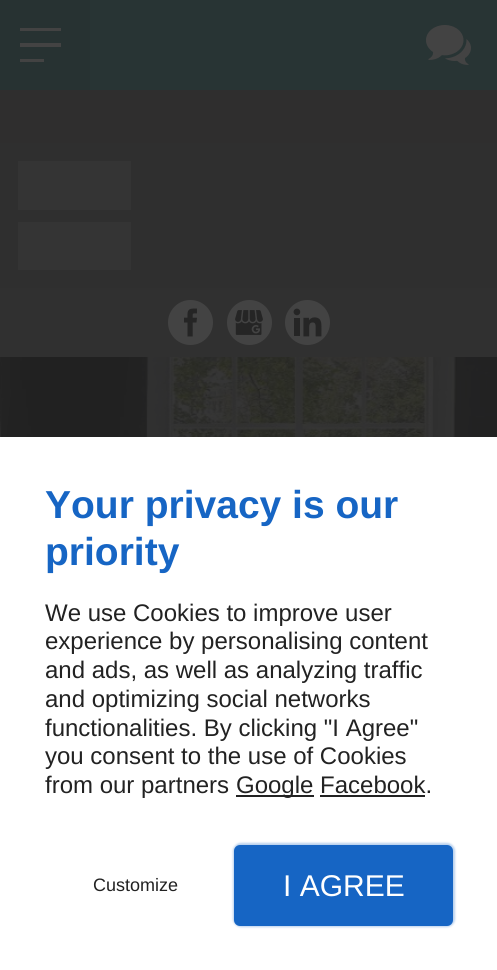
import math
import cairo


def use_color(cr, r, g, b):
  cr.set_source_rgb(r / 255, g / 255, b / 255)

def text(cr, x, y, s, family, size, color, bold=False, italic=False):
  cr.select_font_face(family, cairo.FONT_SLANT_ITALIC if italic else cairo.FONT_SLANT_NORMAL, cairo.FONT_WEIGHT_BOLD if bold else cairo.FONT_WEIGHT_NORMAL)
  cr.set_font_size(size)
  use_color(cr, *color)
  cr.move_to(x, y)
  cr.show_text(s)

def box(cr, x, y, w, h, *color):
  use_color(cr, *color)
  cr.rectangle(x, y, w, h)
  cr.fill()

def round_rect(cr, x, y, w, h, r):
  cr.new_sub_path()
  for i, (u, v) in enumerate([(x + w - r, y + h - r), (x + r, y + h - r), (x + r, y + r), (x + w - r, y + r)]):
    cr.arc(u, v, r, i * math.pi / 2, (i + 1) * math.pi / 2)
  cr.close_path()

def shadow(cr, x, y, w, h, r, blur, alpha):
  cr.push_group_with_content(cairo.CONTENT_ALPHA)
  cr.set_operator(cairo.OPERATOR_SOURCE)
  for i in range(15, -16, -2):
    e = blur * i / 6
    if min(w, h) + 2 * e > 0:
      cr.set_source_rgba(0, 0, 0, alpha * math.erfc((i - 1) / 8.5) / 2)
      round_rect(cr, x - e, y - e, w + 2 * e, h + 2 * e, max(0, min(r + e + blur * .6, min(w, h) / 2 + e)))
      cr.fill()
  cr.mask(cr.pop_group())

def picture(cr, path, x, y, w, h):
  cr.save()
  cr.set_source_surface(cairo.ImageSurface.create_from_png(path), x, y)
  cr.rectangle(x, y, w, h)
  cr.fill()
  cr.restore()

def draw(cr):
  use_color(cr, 255, 255, 255)
  cr.paint()
  box(cr, 90, 0, 407, 90, 40, 52, 52)
  box(cr, 0, 0, 90, 90, 39, 50, 50)
  use_color(cr, 67, 67, 67)
  cr.new_path()
  cr.move_to(61, 28)
  cr.line_to(61, 31)
  cr.line_to(20, 31)
  cr.line_to(20, 28)
  cr.close_path()
  cr.move_to(20, 62)
  cr.line_to(44, 62)
  cr.line_to(44, 59)
  cr.line_to(20, 59)
  cr.close_path()
  cr.move_to(20, 47)
  cr.line_to(61, 47)
  cr.line_to(61, 43)
  cr.line_to(20, 43)
  cr.close_path()
  cr.fill()
  picture(cr, "img_01.png", 426, 25, 45, 40)
  box(cr, 0, 90, 497, 53, 47, 46, 46)
  box(cr, 0, 143, 497, 145, 47, 47, 47)
  box(cr, 18, 161, 113, 49, 52, 52, 52)
  box(cr, 18, 222, 113, 48, 52, 52, 52)
  box(cr, 0, 288, 497, 69, 48, 48, 48)
  use_color(cr, 67, 67, 67)
  cr.arc(190.5, 322.5, 22.5, 0, 2 * math.pi)
  cr.fill()
  picture(cr, "img_02.png", 184, 308, 13, 29)
  cr.arc(249.5, 322.5, 22.5, 0, 2 * math.pi)
  cr.fill()
  picture(cr, "img_03.png", 235, 310, 28, 25)
  cr.arc(307.5, 322.5, 22.5, 0, 2 * math.pi)
  cr.fill()
  picture(cr, "img_04.png", 293, 308, 29, 29)
  picture(cr, "img_05.png", 0, 357, 497, 80)
  box(cr, 236, 795, 78, 2, 34, 34, 34)
  box(cr, 320, 795, 105, 2, 34, 34, 34)
  use_color(cr, 22, 101, 196)
  shadow(cr, 233, 843, 222, 84, 8, 1, 0.3)
  use_color(cr, 22, 101, 196)
  round_rect(cr, 235.5, 846.5, 216, 78, 4.5)
  cr.fill_preserve()
  cr.set_line_width(3)
  cr.stroke()
  text(cr, 45, 518, "Your privacy is our", "Liberation Sans", 39, (22, 101, 196), bold=True)
  text(cr, 45, 565, "priority", "Liberation Sans", 39, (22, 101, 196), bold=True)
  text(cr, 45, 621, "We use Cookies to improve user", "Liberation Sans", 24, (34, 34, 34))
  text(cr, 45, 649, "experience by personalising content", "Liberation Sans", 24, (34, 34, 34))
  text(cr, 45, 678, "and ads, as well as analyzing traffic", "Liberation Sans", 24, (34, 34, 34))
  text(cr, 45, 707, "and optimizing social networks", "Liberation Sans", 24, (34, 34, 34))
  text(cr, 45, 736, "functionalities. By clicking \"I Agree\"", "Liberation Sans", 24, (34, 34, 34))
  text(cr, 45, 764, "you consent to the use of Cookies", "Liberation Sans", 24, (34, 34, 34))
  text(cr, 45, 793, "from our partners", "Liberation Sans", 24, (34, 34, 34))
  text(cr, 236, 793, "Google Facebook.", "Liberation Sans", 24, (34, 34, 34))
  text(cr, 93, 891, "Customize", "Liberation Sans", 18, (34, 34, 34))
  text(cr, 283, 896, "I AGREE", "Liberation Sans", 30, (255, 255, 255))


surface = cairo.ImageSurface(cairo.FORMAT_RGB24, 497, 970)
cr = cairo.Context(surface)
options = cairo.FontOptions()
options.set_hint_metrics(cairo.HINT_METRICS_OFF)
options.set_hint_style(cairo.HINT_STYLE_NONE)
cr.set_font_options(options)
cr.set_miter_limit(4)
draw(cr)
surface.write_to_png("out.png")
